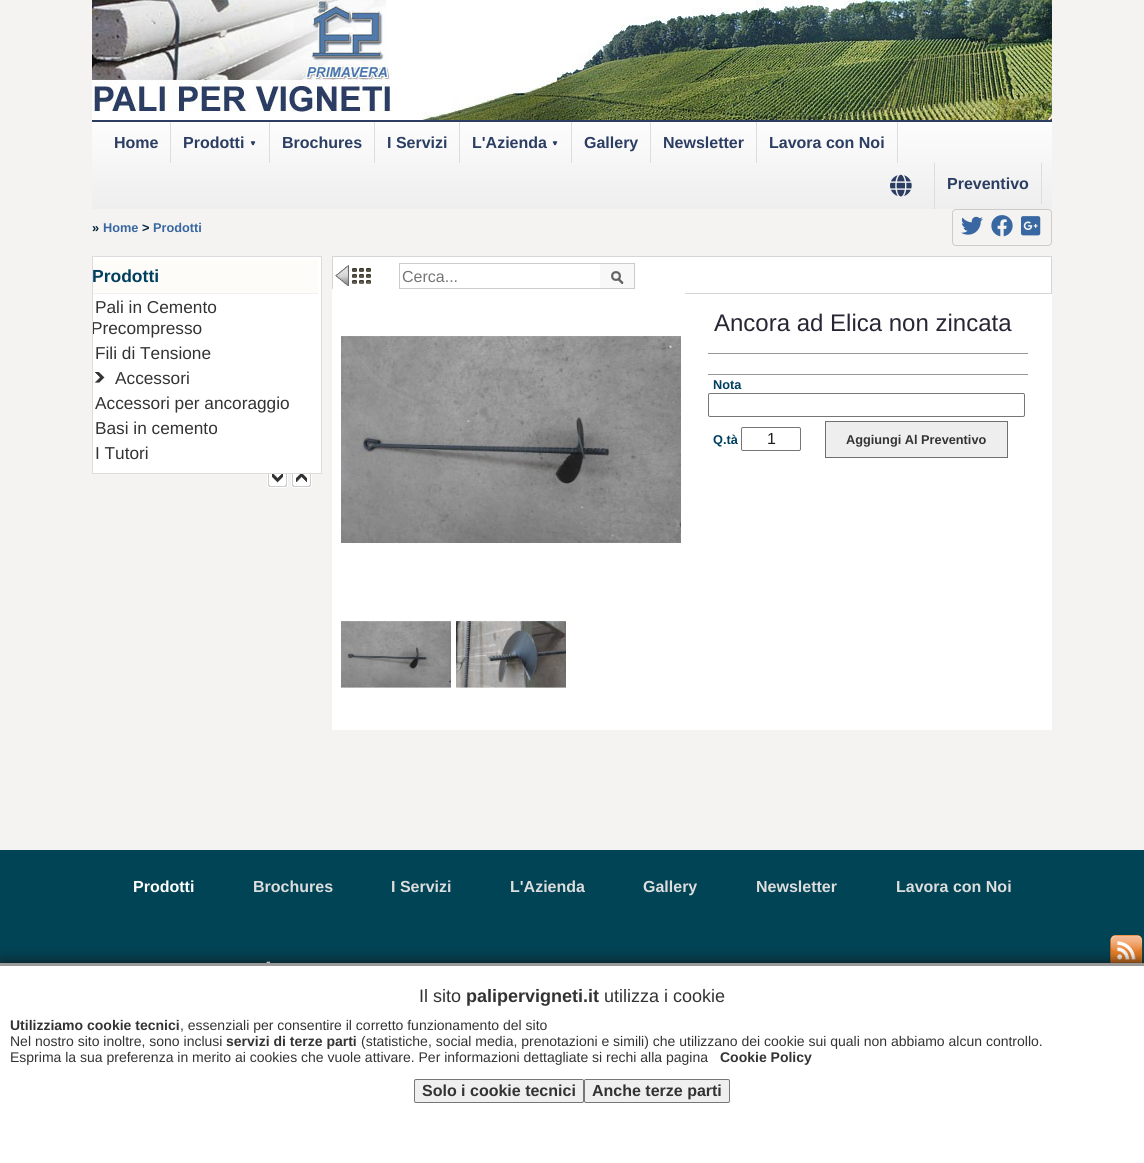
import math
import cairo


def use_color(cr, r, g, b):
  cr.set_source_rgb(r / 255, g / 255, b / 255)

def text(cr, x, y, s, family, size, color, bold=False, italic=False):
  cr.select_font_face(family, cairo.FONT_SLANT_ITALIC if italic else cairo.FONT_SLANT_NORMAL, cairo.FONT_WEIGHT_BOLD if bold else cairo.FONT_WEIGHT_NORMAL)
  cr.set_font_size(size)
  use_color(cr, *color)
  cr.move_to(x, y)
  cr.show_text(s)

def box(cr, x, y, w, h, *color):
  use_color(cr, *color)
  cr.rectangle(x, y, w, h)
  cr.fill()

def round_rect(cr, x, y, w, h, r):
  cr.new_sub_path()
  for i, (u, v) in enumerate([(x + w - r, y + h - r), (x + r, y + h - r), (x + r, y + r), (x + w - r, y + r)]):
    cr.arc(u, v, r, i * math.pi / 2, (i + 1) * math.pi / 2)
  cr.close_path()

def shadow(cr, x, y, w, h, r, blur, alpha):
  cr.push_group_with_content(cairo.CONTENT_ALPHA)
  cr.set_operator(cairo.OPERATOR_SOURCE)
  for i in range(15, -16, -2):
    e = blur * i / 6
    if min(w, h) + 2 * e > 0:
      cr.set_source_rgba(0, 0, 0, alpha * math.erfc((i - 1) / 8.5) / 2)
      round_rect(cr, x - e, y - e, w + 2 * e, h + 2 * e, max(0, min(r + e + blur * .6, min(w, h) / 2 + e)))
      cr.fill()
  cr.mask(cr.pop_group())

def picture(cr, path, x, y, w, h):
  cr.save()
  cr.set_source_surface(cairo.ImageSurface.create_from_png(path), x, y)
  cr.rectangle(x, y, w, h)
  cr.fill()
  cr.restore()

def draw(cr):
  use_color(cr, 244, 243, 241)
  cr.paint()
  box(cr, 92, 0, 328, 120, 255, 255, 255)
  picture(cr, "img_01.png", 420, 0, 632, 120)
  picture(cr, "img_02.png", 92, 0, 300, 112)
  box(cr, 92, 120, 960, 2, 43, 61, 99)
  gradient = cairo.LinearGradient(572, 122, 572, 209)
  gradient.add_color_stop_rgba(0, 0.992, 0.992, 0.992, 1)
  gradient.add_color_stop_rgba(1, 0.933, 0.933, 0.933, 1)
  cr.set_source(gradient)
  cr.rectangle(92, 122, 960, 87)
  cr.fill()
  box(cr, 170, 122, 1, 41, 221, 221, 221)
  box(cr, 269, 122, 1, 41, 221, 221, 221)
  cr.new_path()
  cr.move_to(251.5, 143.5)
  cr.curve_to(252.5, 143, 253.5, 143, 254.5, 143.5)
  use_color(cr, 43, 61, 99)
  cr.set_line_width(4)
  cr.stroke()
  box(cr, 374, 122, 1, 41, 221, 221, 221)
  box(cr, 459, 122, 1, 41, 221, 221, 221)
  box(cr, 571, 122, 1, 41, 221, 221, 221)
  cr.new_path()
  cr.move_to(553.5, 143.5)
  cr.curve_to(554.5, 143, 555.5, 143, 556.5, 143.5)
  use_color(cr, 43, 61, 99)
  cr.stroke()
  box(cr, 650, 122, 1, 41, 221, 221, 221)
  box(cr, 756, 122, 1, 41, 221, 221, 221)
  box(cr, 897, 122, 1, 41, 221, 221, 221)
  box(cr, 934, 163, 1, 46, 221, 221, 221)
  picture(cr, "img_03.png", 890, 174, 22, 23)
  box(cr, 1041, 163, 1, 41, 221, 221, 221)
  round_rect(cr, 952.5, 209.5, 99, 36, 3.5)
  use_color(cr, 204, 204, 204)
  cr.set_line_width(1)
  cr.stroke()
  picture(cr, "img_04.png", 961, 216, 22, 19)
  picture(cr, "img_05.png", 991, 215, 22, 22)
  picture(cr, "img_06.png", 1021, 216, 20, 20)
  use_color(cr, 255, 255, 255)
  cr.rectangle(92.5, 256.5, 229, 217)
  cr.fill_preserve()
  use_color(cr, 221, 220, 216)
  cr.stroke()
  box(cr, 93, 260, 225, 33, 253, 252, 248)
  box(cr, 93, 293, 225, 1, 241, 240, 236)
  picture(cr, "img_07.png", 95, 372, 10, 11)
  picture(cr, "img_08.png", 267, 474, 21, 14)
  picture(cr, "img_09.png", 291, 474, 21, 14)
  box(cr, 332, 257, 720, 473, 255, 255, 255)
  cr.rectangle(332.5, 256.5, 719, 37)
  use_color(cr, 213, 213, 213)
  cr.stroke()
  picture(cr, "img_10.png", 335, 265, 36, 21)
  picture(cr, "img_11.png", 600, 264, 34, 24)
  cr.rectangle(399.5, 263.5, 235, 25)
  use_color(cr, 204, 204, 204)
  cr.stroke()
  box(cr, 332, 289, 353, 5, 255, 255, 255)
  picture(cr, "img_12.png", 341, 336, 340, 208)
  picture(cr, "img_13.png", 341, 621, 110, 67)
  picture(cr, "img_14.png", 456, 620, 110, 68)
  box(cr, 708, 353, 320, 1, 153, 153, 153)
  box(cr, 708, 374, 320, 1, 153, 153, 153)
  round_rect(cr, 708.5, 393.5, 316, 23, 1.5)
  use_color(cr, 118, 118, 118)
  cr.stroke()
  round_rect(cr, 741.5, 427.5, 59, 23, 1.5)
  cr.stroke()
  box(cr, 826, 422, 181, 35, 238, 238, 238)
  box(cr, 825, 421, 183, 1, 112, 112, 112)
  box(cr, 825, 457, 162, 1, 112, 112, 112)
  box(cr, 825, 421, 1, 37, 112, 112, 112)
  box(cr, 1007, 421, 1, 37, 112, 112, 112)
  box(cr, 987, 457, 21, 1, 112, 112, 112)
  box(cr, 0, 850, 1144, 113, 1, 68, 85)
  picture(cr, "img_15.png", 1109, 935, 34, 28)
  use_color(cr, 18, 18, 18)
  shadow(cr, 0, 963, 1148, 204, 0, 7, 1)
  box(cr, 0, 966, 1144, 197, 255, 255, 255)
  box(cr, 0, 963, 1144, 3, 153, 153, 153)
  use_color(cr, 239, 239, 239)
  round_rect(cr, 414.5, 1079.5, 169, 23, 1.5)
  cr.fill_preserve()
  use_color(cr, 118, 118, 118)
  cr.stroke()
  use_color(cr, 239, 239, 239)
  round_rect(cr, 584.5, 1079.5, 145, 23, 1.5)
  cr.fill_preserve()
  use_color(cr, 118, 118, 118)
  cr.stroke()
  text(cr, 114, 148, "Home", "Liberation Sans", 16, (43, 61, 99), bold=True)
  text(cr, 183, 148, "Prodotti", "Liberation Sans", 16, (43, 61, 99), bold=True)
  text(cr, 282, 148, "Brochures", "Liberation Sans", 16, (43, 61, 99), bold=True)
  text(cr, 387, 148, "I Servizi", "Liberation Sans", 16, (43, 61, 99), bold=True)
  text(cr, 472, 148, "L'Azienda", "Liberation Sans", 16, (43, 61, 99), bold=True)
  text(cr, 584, 148, "Gallery", "Liberation Sans", 16, (43, 61, 99), bold=True)
  text(cr, 663, 148, "Newsletter", "Liberation Sans", 16, (43, 61, 99), bold=True)
  text(cr, 769, 148, "Lavora con Noi", "Liberation Sans", 16, (43, 61, 99), bold=True)
  text(cr, 947, 189, "Preventivo", "Liberation Sans", 16, (43, 61, 99), bold=True)
  text(cr, 92, 232, "»", "Liberation Sans", 12.75, (0, 34, 54), bold=True)
  text(cr, 103, 232, "Home", "Liberation Sans", 12.75, (56, 103, 161), bold=True)
  text(cr, 142, 232, ">", "Liberation Sans", 12.75, (0, 34, 54), bold=True)
  text(cr, 153, 232, "Prodotti", "Liberation Sans", 12.75, (56, 103, 161), bold=True)
  text(cr, 92, 282, "Prodotti", "Liberation Sans", 17.5, (0, 63, 94), bold=True)
  text(cr, 95, 313, "Pali in Cemento", "Liberation Sans", 17.25, (51, 51, 51))
  cr.save()
  cr.rectangle(93, 257, 228, 216)
  cr.clip()
  text(cr, 91, 334, "Precompresso", "Liberation Sans", 17.25, (51, 51, 51))
  cr.restore()
  text(cr, 95, 359, "Fili di Tensione", "Liberation Sans", 17.25, (51, 51, 51))
  text(cr, 115, 384, "Accessori", "Liberation Sans", 17.25, (51, 51, 51))
  text(cr, 95, 409, "Accessori per ancoraggio", "Liberation Sans", 17.25, (51, 51, 51))
  text(cr, 95, 434, "Basi in cemento", "Liberation Sans", 17.25, (51, 51, 51))
  text(cr, 95, 459, "I Tutori", "Liberation Sans", 17.25, (51, 51, 51))
  text(cr, 402, 282, "Cerca...", "Liberation Sans", 16, (117, 117, 117))
  text(cr, 714, 331, "Ancora ad Elica non zincata", "Liberation Sans", 24, (40, 38, 52))
  text(cr, 713, 389, "Nota", "Liberation Sans", 12.75, (0, 63, 94), bold=True)
  text(cr, 713, 444, "Q.tà", "Liberation Sans", 12.75, (0, 63, 94), bold=True)
  text(cr, 767, 444, "1", "Liberation Sans", 16, (27, 30, 33))
  text(cr, 846, 444, "Aggiungi Al Preventivo", "Liberation Sans", 12.75, (51, 51, 51), bold=True)
  text(cr, 133, 892, "Prodotti", "Liberation Sans", 16, (255, 255, 255), bold=True)
  text(cr, 253, 892, "Brochures", "Liberation Sans", 16, (221, 221, 221), bold=True)
  text(cr, 391, 892, "I Servizi", "Liberation Sans", 16, (221, 221, 221), bold=True)
  text(cr, 510, 892, "L'Azienda", "Liberation Sans", 16, (221, 221, 221), bold=True)
  text(cr, 643, 892, "Gallery", "Liberation Sans", 16, (221, 221, 221), bold=True)
  text(cr, 756, 892, "Newsletter", "Liberation Sans", 16, (221, 221, 221), bold=True)
  text(cr, 896, 892, "Lavora con Noi", "Liberation Sans", 16, (221, 221, 221), bold=True)
  text(cr, 266, 966, "-", "Liberation Sans", 14, (221, 221, 221))
  text(cr, 419, 1002, "Il sito", "Liberation Sans", 18, (51, 51, 51))
  text(cr, 466, 1002, "palipervigneti.it", "Liberation Sans", 18, (51, 51, 51), bold=True)
  text(cr, 604, 1002, "utilizza i cookie", "Liberation Sans", 18, (51, 51, 51))
  text(cr, 10, 1030, "Utilizziamo cookie tecnici", "Liberation Sans", 14, (51, 51, 51), bold=True)
  text(cr, 180, 1030, ", essenziali per consentire il corretto funzionamento del sito", "Liberation Sans", 14, (51, 51, 51))
  text(cr, 10, 1046, "Nel nostro sito inoltre, sono inclusi", "Liberation Sans", 14, (51, 51, 51))
  text(cr, 226, 1046, "servizi di terze parti", "Liberation Sans", 14, (51, 51, 51), bold=True)
  text(cr, 361, 1046, "(statistiche, social media, prenotazioni e simili) che utilizzano dei cookie sui quali non abbiamo alcun controllo.", "Liberation Sans", 14, (51, 51, 51))
  text(cr, 10, 1062, "Esprima la sua preferenza in merito ai cookies che vuole attivare. Per informazioni dettagliate si rechi alla pagina", "Liberation Sans", 14, (51, 51, 51))
  text(cr, 720, 1062, "Cookie Policy", "Liberation Sans", 14, (51, 51, 51), bold=True)
  text(cr, 422, 1096, "Solo i cookie tecnici", "Liberation Sans", 16, (51, 51, 51), bold=True)
  text(cr, 592, 1096, "Anche terze parti", "Liberation Sans", 16, (51, 51, 51), bold=True)


surface = cairo.ImageSurface(cairo.FORMAT_RGB24, 1144, 1163)
cr = cairo.Context(surface)
options = cairo.FontOptions()
options.set_hint_metrics(cairo.HINT_METRICS_OFF)
options.set_hint_style(cairo.HINT_STYLE_NONE)
cr.set_font_options(options)
cr.set_miter_limit(4)
draw(cr)
surface.write_to_png("out.png")
